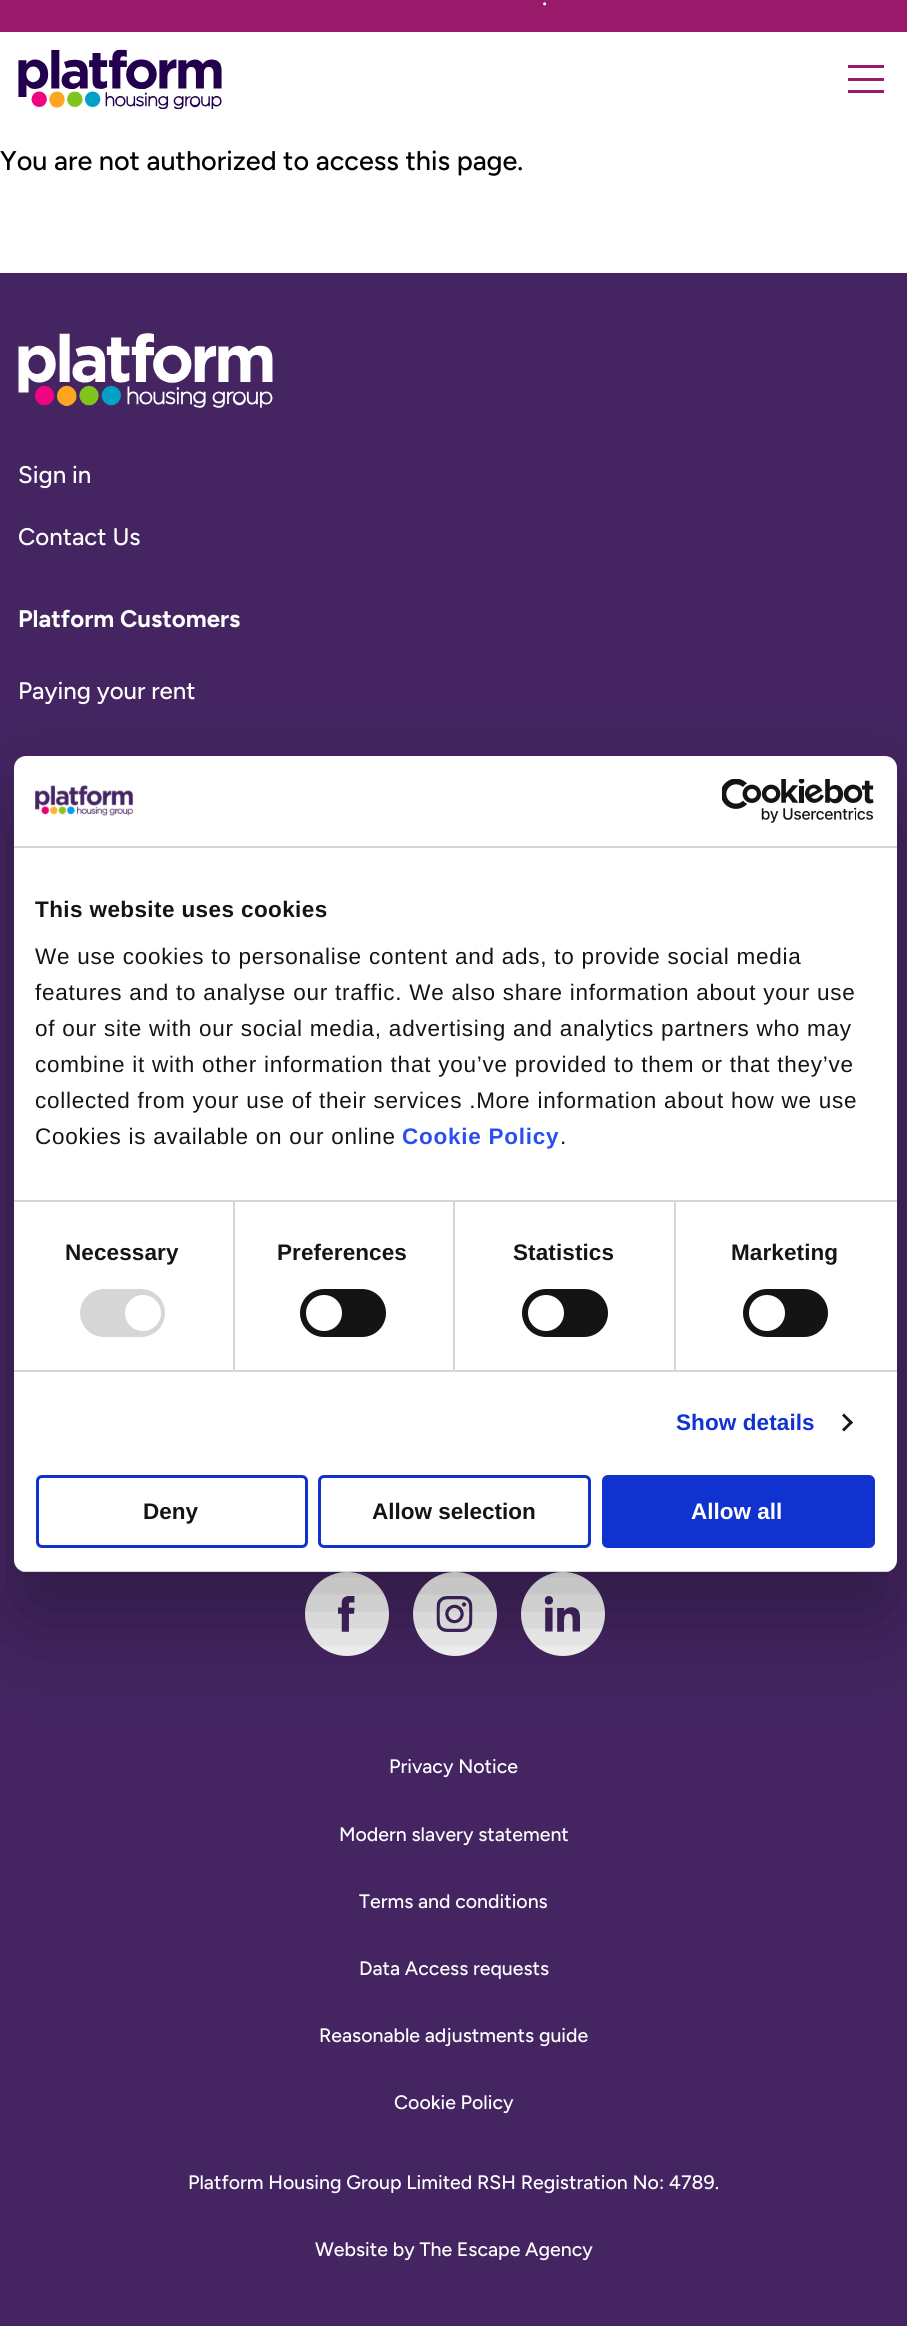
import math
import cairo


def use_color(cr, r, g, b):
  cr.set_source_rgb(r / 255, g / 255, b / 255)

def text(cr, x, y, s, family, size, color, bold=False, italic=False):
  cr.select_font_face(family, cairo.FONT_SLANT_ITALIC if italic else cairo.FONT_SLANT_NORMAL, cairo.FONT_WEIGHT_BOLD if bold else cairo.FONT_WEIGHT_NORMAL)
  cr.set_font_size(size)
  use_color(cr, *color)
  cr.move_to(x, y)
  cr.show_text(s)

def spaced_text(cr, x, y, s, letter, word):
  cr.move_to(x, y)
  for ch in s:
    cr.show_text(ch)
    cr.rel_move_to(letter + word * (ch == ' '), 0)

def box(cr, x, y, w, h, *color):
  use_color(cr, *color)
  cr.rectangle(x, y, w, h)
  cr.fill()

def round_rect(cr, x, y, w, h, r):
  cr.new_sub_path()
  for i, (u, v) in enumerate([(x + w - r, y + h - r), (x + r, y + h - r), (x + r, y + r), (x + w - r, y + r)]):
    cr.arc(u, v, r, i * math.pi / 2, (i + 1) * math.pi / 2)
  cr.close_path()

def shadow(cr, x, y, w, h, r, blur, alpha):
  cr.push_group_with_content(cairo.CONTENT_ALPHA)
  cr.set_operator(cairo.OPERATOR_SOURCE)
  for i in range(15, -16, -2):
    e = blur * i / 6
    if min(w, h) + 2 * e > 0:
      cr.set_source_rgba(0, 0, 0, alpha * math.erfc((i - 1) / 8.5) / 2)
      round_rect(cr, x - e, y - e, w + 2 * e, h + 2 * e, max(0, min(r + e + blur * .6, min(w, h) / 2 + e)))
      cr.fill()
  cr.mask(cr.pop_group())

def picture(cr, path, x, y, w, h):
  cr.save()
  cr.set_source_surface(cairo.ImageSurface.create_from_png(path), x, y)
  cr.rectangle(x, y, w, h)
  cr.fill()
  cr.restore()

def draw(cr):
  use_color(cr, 255, 255, 255)
  cr.paint()
  box(cr, 0, 0, 907, 32, 153, 26, 107)
  picture(cr, "img_01.png", 18, 49, 204, 61)
  box(cr, 848, 65, 36, 3, 153, 26, 107)
  box(cr, 848, 78, 36, 3, 153, 26, 107)
  box(cr, 848, 90, 36, 3, 153, 26, 107)
  box(cr, 0, 273, 907, 2053, 68, 37, 98)
  picture(cr, "img_02.png", 18, 333, 255, 75)
  use_color(cr, 255, 255, 255)
  cr.arc(347, 1614, 42, 0, 2 * math.pi)
  cr.fill()
  picture(cr, "img_03.png", 338, 1596, 17, 36)
  cr.arc(455, 1614, 42, 0, 2 * math.pi)
  cr.fill()
  picture(cr, "img_04.png", 436, 1596, 37, 36)
  cr.arc(563, 1614, 42, 0, 2 * math.pi)
  cr.fill()
  picture(cr, "img_05.png", 544, 1596, 36, 36)
  use_color(cr, 0, 0, 0)
  shadow(cr, 14, 804, 883, 816, 12, 51, 0.3)
  use_color(cr, 255, 255, 255)
  round_rect(cr, 14, 756, 883, 816, 12)
  cr.fill()
  box(cr, 14, 846, 883, 2, 214, 214, 214)
  picture(cr, "img_06.png", 35, 785, 98, 31)
  picture(cr, "img_07.png", 722, 779, 152, 44)
  box(cr, 14, 1200, 883, 2, 214, 214, 214)
  box(cr, 14, 1370, 883, 2, 214, 214, 214)
  box(cr, 233, 1202, 2, 168, 214, 214, 214)
  round_rect(cr, 80, 1289, 85, 48, 24)
  cr.fill()
  use_color(cr, 255, 255, 255)
  cr.arc(143, 1313, 18, 0, 2 * math.pi)
  cr.fill()
  box(cr, 453, 1202, 2, 168, 214, 214, 214)
  use_color(cr, 20, 20, 20)
  round_rect(cr, 300, 1289, 86, 48, 24)
  cr.fill()
  use_color(cr, 255, 255, 255)
  cr.arc(324, 1313, 18, 0, 2 * math.pi)
  cr.fill()
  box(cr, 674, 1202, 2, 168, 214, 214, 214)
  use_color(cr, 20, 20, 20)
  round_rect(cr, 522, 1289, 86, 48, 24)
  cr.fill()
  use_color(cr, 255, 255, 255)
  cr.arc(546, 1313, 18, 0, 2 * math.pi)
  cr.fill()
  use_color(cr, 20, 20, 20)
  round_rect(cr, 743, 1289, 85, 48, 24)
  cr.fill()
  use_color(cr, 255, 255, 255)
  cr.arc(767, 1313, 18, 0, 2 * math.pi)
  cr.fill()
  use_color(cr, 20, 20, 20)
  cr.new_path()
  cr.move_to(844, 1413.5)
  cr.line_to(853, 1422.5)
  cr.line_to(851, 1424.5)
  cr.line_to(842, 1415.5)
  cr.close_path()
  cr.fill()
  cr.new_path()
  cr.move_to(851, 1420.5)
  cr.line_to(853, 1422.5)
  cr.line_to(844, 1431.5)
  cr.line_to(842, 1429.5)
  cr.close_path()
  cr.fill()
  cr.save()
  round_rect(cr, 14, 756, 883, 816, 12)
  cr.clip()
  box(cr, 14, 1571, 883, 1, 214, 214, 214)
  cr.restore()
  round_rect(cr, 37.5, 1476.5, 269, 70, 4.5)
  use_color(cr, 16, 50, 207)
  cr.set_line_width(3)
  cr.stroke()
  round_rect(cr, 319.5, 1476.5, 270, 70, 4.5)
  cr.stroke()
  round_rect(cr, 603.5, 1476.5, 270, 70, 4.5)
  cr.fill_preserve()
  cr.stroke()
  text(cr, 542, 5, ".", "Figtree Medium", 24, (255, 255, 255))
  text(cr, 0, 170, "You are not authorized to access this page.", "Figtree Medium", 27, (0, 0, 0))
  text(cr, 18, 483, "Sign in", "Figtree Medium", 24, (255, 255, 255))
  text(cr, 18, 545, "Contact Us", "Figtree Medium", 24, (255, 255, 255))
  text(cr, 18, 627, "Platform Customers", "Figtree", 24, (255, 255, 255), bold=True)
  text(cr, 18, 699, "Paying your rent", "Figtree Medium", 24, (255, 255, 255))
  text(cr, 389, 1773, "Privacy Notice", "Figtree Medium", 19.5, (255, 255, 255))
  text(cr, 339, 1841, "Modern slavery statement", "Figtree Medium", 19.5, (255, 255, 255))
  text(cr, 359, 1908, "Terms and conditions", "Figtree Medium", 19.5, (255, 255, 255))
  text(cr, 359, 1975, "Data Access requests", "Figtree Medium", 19.5, (255, 255, 255))
  text(cr, 319, 2042, "Reasonable adjustments guide", "Figtree Medium", 19.5, (255, 255, 255))
  text(cr, 394, 2109, "Cookie Policy", "Figtree Medium", 19.5, (255, 255, 255))
  text(cr, 188, 2189, "Platform Housing Group Limited RSH Registration No: 4789.", "Figtree Medium", 19.5, (255, 255, 255))
  text(cr, 315, 2256, "Website by The Escape Agency", "Figtree Medium", 19.5, (255, 255, 255))
  cr.select_font_face("Liberation Sans", cairo.FONT_SLANT_NORMAL, cairo.FONT_WEIGHT_BOLD)
  cr.set_font_size(22.5)
  use_color(cr, 20, 20, 20)
  spaced_text(cr, 35, 917, "This website uses cookies", 0.4, 0)
  cr.select_font_face("Liberation Sans")
  spaced_text(cr, 35, 964, "We use cookies to personalise content and ads, to provide social media", 0.75, 0)
  spaced_text(cr, 35, 1000, "features and to analyse our traffic. We also share information about your use", 0.75, 0)
  spaced_text(cr, 35, 1036, "of our site with our social media, advertising and analytics partners who may", 0.75, 0)
  spaced_text(cr, 35, 1072, "combine it with other information that you’ve provided to them or that they’ve", 0.75, 0)
  spaced_text(cr, 35, 1108, "collected from your use of their services .More information about how we use", 0.75, 0)
  spaced_text(cr, 35, 1144, "Cookies is available on our online", 0.75, 0)
  cr.select_font_face("Liberation Sans", cairo.FONT_SLANT_NORMAL, cairo.FONT_WEIGHT_BOLD)
  use_color(cr, 42, 78, 239)
  spaced_text(cr, 402, 1144, "Cookie Policy", 0.75, 0)
  cr.select_font_face("Liberation Sans")
  use_color(cr, 20, 20, 20)
  spaced_text(cr, 560, 1144, ".", 0.75, 0)
  cr.select_font_face("Liberation Sans", cairo.FONT_SLANT_NORMAL, cairo.FONT_WEIGHT_BOLD)
  spaced_text(cr, 65, 1260, "Necessary", 0.1, 0)
  spaced_text(cr, 277, 1260, "Preferences", 0.1, 0)
  spaced_text(cr, 513, 1260, "Statistics", 0.1, 0)
  spaced_text(cr, 731, 1260, "Marketing", 0.1, 0)
  use_color(cr, 16, 50, 207)
  spaced_text(cr, 676, 1430, "Show details", 0.1, 0)
  text(cr, 143, 1519, "Deny", "Liberation Sans", 22.5, (20, 20, 20), bold=True)
  text(cr, 372, 1519, "Allow selection", "Liberation Sans", 22.5, (20, 20, 20), bold=True)
  text(cr, 691, 1519, "Allow all", "Liberation Sans", 22.5, (255, 255, 255), bold=True)


surface = cairo.ImageSurface(cairo.FORMAT_RGB24, 907, 2326)
cr = cairo.Context(surface)
options = cairo.FontOptions()
options.set_hint_metrics(cairo.HINT_METRICS_OFF)
options.set_hint_style(cairo.HINT_STYLE_NONE)
cr.set_font_options(options)
cr.set_miter_limit(4)
draw(cr)
surface.write_to_png("out.png")
